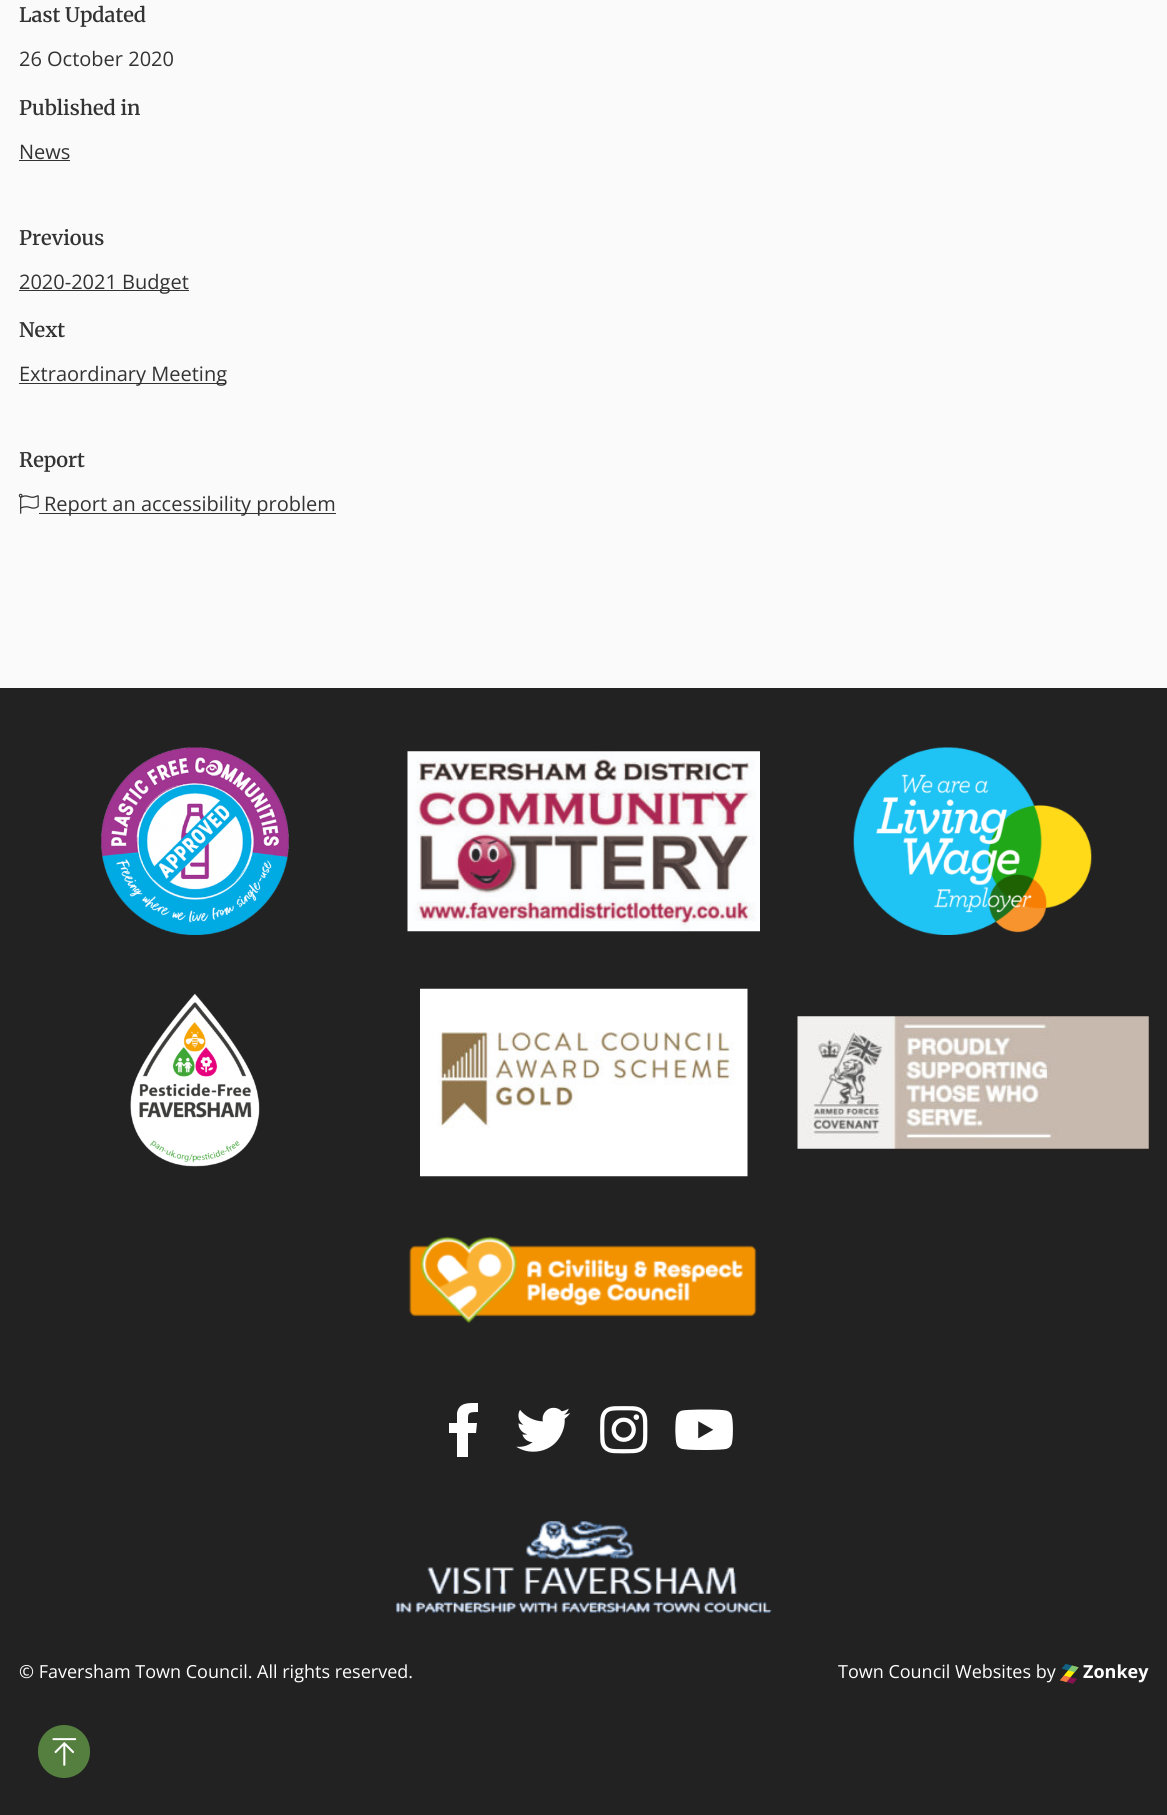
import math
import cairo


def use_color(cr, r, g, b):
  cr.set_source_rgb(r / 255, g / 255, b / 255)

def text(cr, x, y, s, family, size, color, bold=False, italic=False):
  cr.select_font_face(family, cairo.FONT_SLANT_ITALIC if italic else cairo.FONT_SLANT_NORMAL, cairo.FONT_WEIGHT_BOLD if bold else cairo.FONT_WEIGHT_NORMAL)
  cr.set_font_size(size)
  use_color(cr, *color)
  cr.move_to(x, y)
  cr.show_text(s)

def box(cr, x, y, w, h, *color):
  use_color(cr, *color)
  cr.rectangle(x, y, w, h)
  cr.fill()

def round_rect(cr, x, y, w, h, r):
  cr.new_sub_path()
  for i, (u, v) in enumerate([(x + w - r, y + h - r), (x + r, y + h - r), (x + r, y + r), (x + w - r, y + r)]):
    cr.arc(u, v, r, i * math.pi / 2, (i + 1) * math.pi / 2)
  cr.close_path()

def picture(cr, path, x, y, w, h):
  cr.save()
  cr.set_source_surface(cairo.ImageSurface.create_from_png(path), x, y)
  cr.rectangle(x, y, w, h)
  cr.fill()
  cr.restore()

def draw(cr):
  use_color(cr, 250, 250, 250)
  cr.paint()
  box(cr, 19, 160, 51, 1, 51, 51, 51)
  box(cr, 19, 290, 170, 1, 51, 51, 51)
  box(cr, 19, 383, 207, 1, 51, 51, 51)
  picture(cr, "img_01.png", 18, 493, 21, 21)
  box(cr, 39, 513, 297, 1, 51, 51, 51)
  box(cr, 0, 688, 1167, 1127, 34, 34, 34)
  picture(cr, "img_02.png", 101, 747, 188, 188)
  picture(cr, "img_03.png", 407, 751, 353, 181)
  picture(cr, "img_04.png", 853, 747, 239, 188)
  picture(cr, "img_05.png", 130, 993, 130, 174)
  picture(cr, "img_06.png", 420, 988, 328, 189)
  picture(cr, "img_07.png", 797, 1016, 352, 133)
  picture(cr, "img_08.png", 408, 1236, 349, 87)
  use_color(cr, 255, 255, 255)
  cr.new_path()
  cr.move_to(476, 1433)
  cr.line_to(468, 1433)
  cr.line_to(468, 1457)
  cr.line_to(457, 1457)
  cr.line_to(457, 1433)
  cr.line_to(449, 1433)
  cr.line_to(449, 1423)
  cr.line_to(457, 1423)
  cr.line_to(457, 1413)
  cr.curve_to(459, 1402, 469, 1403, 478, 1403)
  cr.line_to(478, 1412)
  cr.curve_to(467, 1412, 468, 1413, 468, 1423)
  cr.line_to(477, 1423)
  cr.close_path()
  cr.fill()
  picture(cr, "img_09.png", 516, 1407, 55, 45)
  picture(cr, "img_10.png", 600, 1406, 48, 48)
  picture(cr, "img_11.png", 675, 1409, 58, 41)
  picture(cr, "img_12.png", 396, 1521, 376, 92)
  picture(cr, "img_13.png", 1060, 1664, 19, 20)
  use_color(cr, 85, 127, 63)
  round_rect(cr, 38, 1725, 52, 53, 26)
  cr.fill()
  picture(cr, "img_14.png", 52, 1738, 25, 28)
  text(cr, 19, 22, "Last Updated", "Merriweather SemiBold", 20, (51, 51, 51))
  text(cr, 19, 66, "26 October 2020", "Open Sans", 20, (51, 51, 51))
  text(cr, 19, 115, "Published in", "Merriweather SemiBold", 20, (51, 51, 51))
  text(cr, 19, 159, "News", "Open Sans", 20, (51, 51, 51))
  text(cr, 19, 245, "Previous", "Merriweather SemiBold", 20, (51, 51, 51))
  text(cr, 19, 289, "2020-2021 Budget", "Open Sans", 20, (51, 51, 51))
  text(cr, 19, 337, "Next", "Merriweather SemiBold", 20, (51, 51, 51))
  text(cr, 19, 381, "Extraordinary Meeting", "Open Sans", 20, (51, 51, 51))
  text(cr, 19, 467, "Report", "Merriweather SemiBold", 20, (51, 51, 51))
  text(cr, 44, 511, "Report an accessibility problem", "Open Sans", 20, (51, 51, 51))
  text(cr, 19, 1678, "© Faversham Town Council. All rights reserved.", "Open Sans", 18, (255, 255, 255))
  text(cr, 838, 1678, "Town Council Websites by", "Open Sans", 18, (255, 255, 255))
  text(cr, 1083, 1678, "Zonkey", "Open Sans", 18, (255, 255, 255), bold=True)


surface = cairo.ImageSurface(cairo.FORMAT_RGB24, 1167, 1815)
cr = cairo.Context(surface)
options = cairo.FontOptions()
options.set_hint_metrics(cairo.HINT_METRICS_OFF)
options.set_hint_style(cairo.HINT_STYLE_NONE)
cr.set_font_options(options)
cr.set_miter_limit(4)
draw(cr)
surface.write_to_png("out.png")
